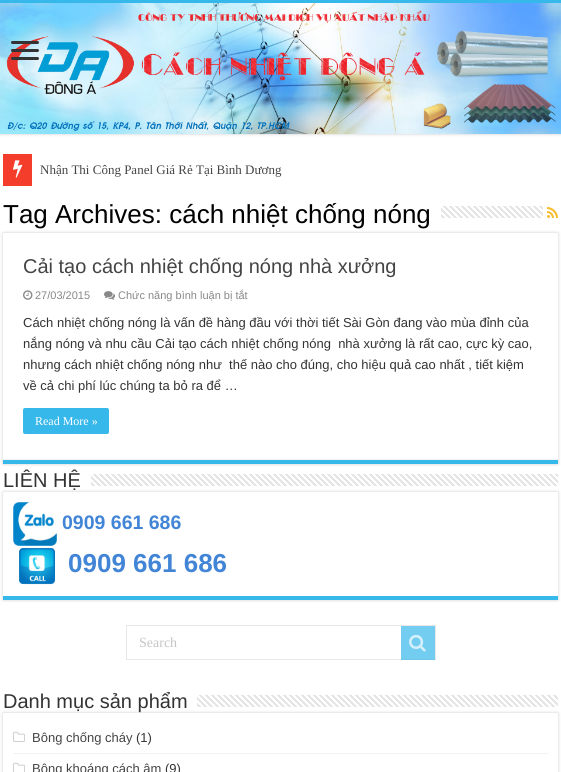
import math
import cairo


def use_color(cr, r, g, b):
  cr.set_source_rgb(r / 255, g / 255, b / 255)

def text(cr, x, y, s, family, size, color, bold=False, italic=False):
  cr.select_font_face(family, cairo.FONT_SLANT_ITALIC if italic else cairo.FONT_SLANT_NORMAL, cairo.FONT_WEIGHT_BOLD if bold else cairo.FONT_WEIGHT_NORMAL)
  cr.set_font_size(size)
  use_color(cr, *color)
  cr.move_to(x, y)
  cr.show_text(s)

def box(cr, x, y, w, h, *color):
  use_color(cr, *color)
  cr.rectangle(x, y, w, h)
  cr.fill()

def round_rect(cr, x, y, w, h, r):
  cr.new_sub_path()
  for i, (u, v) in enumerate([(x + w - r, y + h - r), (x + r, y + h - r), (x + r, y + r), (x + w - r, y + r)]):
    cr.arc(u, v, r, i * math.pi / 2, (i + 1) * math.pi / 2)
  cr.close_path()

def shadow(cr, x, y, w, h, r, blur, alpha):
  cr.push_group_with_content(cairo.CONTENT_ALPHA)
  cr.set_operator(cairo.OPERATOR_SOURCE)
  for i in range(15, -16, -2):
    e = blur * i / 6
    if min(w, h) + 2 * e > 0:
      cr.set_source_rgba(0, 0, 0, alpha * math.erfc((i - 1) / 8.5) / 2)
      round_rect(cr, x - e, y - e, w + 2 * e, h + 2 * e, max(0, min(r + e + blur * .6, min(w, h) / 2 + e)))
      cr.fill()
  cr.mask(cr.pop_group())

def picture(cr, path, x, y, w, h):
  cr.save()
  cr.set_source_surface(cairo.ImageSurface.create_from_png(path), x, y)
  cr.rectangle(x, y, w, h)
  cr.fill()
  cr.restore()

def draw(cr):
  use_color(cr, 255, 255, 255)
  cr.paint()
  use_color(cr, 202, 202, 202)
  shadow(cr, 0, 0, 561, 134, 0, 1.5, 1)
  box(cr, 0, 0, 561, 3, 55, 184, 235)
  picture(cr, "img_01.png", 0, 3, 561, 131)
  use_color(cr, 51, 51, 51)
  round_rect(cr, 11, 41, 28, 3, 1.5)
  cr.fill()
  round_rect(cr, 11, 49, 28, 3, 1.5)
  cr.fill()
  round_rect(cr, 11, 57, 28, 3, 1.5)
  cr.fill()
  box(cr, 3, 154, 29, 32, 244, 61, 42)
  picture(cr, "img_02.png", 13, 160, 10, 18)
  picture(cr, "img_03.png", 441, 206, 102, 12)
  picture(cr, "img_04.png", 547, 207, 11, 11)
  cr.save()
  cr.set_fill_rule(cairo.FILL_RULE_EVEN_ODD)
  cr.new_path()
  cr.move_to(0, 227)
  cr.line_to(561, 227)
  cr.line_to(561, 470)
  cr.line_to(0, 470)
  cr.close_path()
  cr.move_to(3, 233)
  cr.line_to(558, 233)
  cr.line_to(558, 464)
  cr.line_to(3, 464)
  cr.close_path()
  cr.clip()
  use_color(cr, 202, 202, 202)
  shadow(cr, 3, 233, 555, 231, 0, 1.5, 1)
  cr.restore()
  box(cr, 3, 460, 555, 4, 55, 184, 235)
  box(cr, 3, 459, 555, 1, 242, 242, 242)
  picture(cr, "img_05.png", 23, 290, 10, 10)
  picture(cr, "img_06.png", 104, 291, 11, 9)
  use_color(cr, 55, 184, 235)
  round_rect(cr, 23, 408, 86, 26, 2)
  cr.fill()
  picture(cr, "img_07.png", 91, 474, 467, 12)
  cr.save()
  cr.set_fill_rule(cairo.FILL_RULE_EVEN_ODD)
  cr.new_path()
  cr.move_to(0, 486)
  cr.line_to(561, 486)
  cr.line_to(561, 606)
  cr.line_to(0, 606)
  cr.close_path()
  cr.move_to(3, 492)
  cr.line_to(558, 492)
  cr.line_to(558, 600)
  cr.line_to(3, 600)
  cr.close_path()
  cr.clip()
  use_color(cr, 202, 202, 202)
  shadow(cr, 3, 492, 555, 108, 0, 1.5, 1)
  cr.restore()
  box(cr, 3, 596, 555, 4, 55, 184, 235)
  picture(cr, "img_08.png", 13, 502, 44, 44)
  picture(cr, "img_09.png", 19, 547, 36, 38)
  cr.rectangle(126.5, 625.5, 309, 34)
  use_color(cr, 232, 232, 232)
  cr.set_line_width(1)
  cr.stroke()
  cr.set_source_rgba(0.216, 0.722, 0.922, 0.7)
  cr.rectangle(401, 626, 34, 34)
  cr.fill()
  picture(cr, "img_10.png", 409, 634, 17, 18)
  picture(cr, "img_11.png", 197, 695, 361, 12)
  cr.save()
  cr.set_fill_rule(cairo.FILL_RULE_EVEN_ODD)
  cr.new_path()
  cr.move_to(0, 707)
  cr.line_to(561, 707)
  cr.line_to(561, 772)
  cr.line_to(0, 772)
  cr.close_path()
  cr.move_to(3, 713)
  cr.line_to(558, 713)
  cr.line_to(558, 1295)
  cr.line_to(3, 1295)
  cr.close_path()
  cr.clip()
  use_color(cr, 202, 202, 202)
  shadow(cr, 3, 713, 555, 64, 0, 1.5, 1)
  cr.restore()
  box(cr, 13, 753, 535, 1, 242, 242, 242)
  picture(cr, "img_12.png", 13, 731, 12, 11)
  picture(cr, "img_13.png", 13, 762, 12, 10)
  text(cr, 40, 174, "Nhận Thi Công Panel Giá Rẻ Tại Bình Dương", "Liberation Serif", 13, (68, 68, 68))
  text(cr, 3, 223, "Tag Archives: cách nhiệt chống nóng", "Liberation Sans", 26, (0, 0, 0))
  text(cr, 23, 273, "Cải tạo cách nhiệt chống nóng nhà xưởng", "Liberation Sans", 20, (68, 68, 68))
  text(cr, 35, 299, "27/03/2015", "Liberation Sans", 11, (136, 136, 136))
  text(cr, 118, 299, "Chức năng bình luận bị tắt", "Liberation Sans", 11, (136, 136, 136))
  text(cr, 23, 327, "Cách nhiệt chống nóng là vấn đề hàng đầu với thời tiết Sài Gòn đang vào mùa đỉnh của", "Liberation Sans", 13, (51, 51, 51))
  text(cr, 23, 348, "nắng nóng và nhu cầu Cải tạo cách nhiệt chống nóng  nhà xưởng là rất cao, cực kỳ cao,", "Liberation Sans", 13, (51, 51, 51))
  text(cr, 23, 369, "nhưng cách nhiệt chống nóng như  thế nào cho đúng, cho hiệu quả cao nhất , tiết kiệm", "Liberation Sans", 13, (51, 51, 51))
  text(cr, 23, 390, "về cả chi phí lúc chúng ta bỏ ra để …", "Liberation Sans", 13, (51, 51, 51))
  text(cr, 35, 425, "Read More »", "Liberation Serif", 12, (255, 255, 255))
  text(cr, 3, 487, "LIÊN HỆ", "Liberation Sans", 20, (51, 51, 51))
  text(cr, 62, 529, "0909 661 686", "Liberation Sans", 19.5, (66, 133, 214), bold=True)
  text(cr, 68, 572, "0909 661 686", "Liberation Sans", 26, (66, 133, 214), bold=True)
  text(cr, 139, 647, "Search", "Liberation Serif", 14, (197, 197, 197))
  text(cr, 3, 708, "Danh mục sản phẩm", "Liberation Sans", 20, (51, 51, 51))
  text(cr, 32, 742, "Bông chống cháy", "Liberation Sans", 13, (68, 68, 68))
  text(cr, 136, 742, "(1)", "Liberation Sans", 13, (51, 51, 51))
  text(cr, 32, 773, "Bông khoáng cách âm", "Liberation Sans", 13, (68, 68, 68))
  text(cr, 165, 773, "(9)", "Liberation Sans", 13, (51, 51, 51))


surface = cairo.ImageSurface(cairo.FORMAT_RGB24, 561, 772)
cr = cairo.Context(surface)
options = cairo.FontOptions()
options.set_hint_metrics(cairo.HINT_METRICS_OFF)
options.set_hint_style(cairo.HINT_STYLE_NONE)
cr.set_font_options(options)
cr.set_miter_limit(4)
draw(cr)
surface.write_to_png("out.png")
